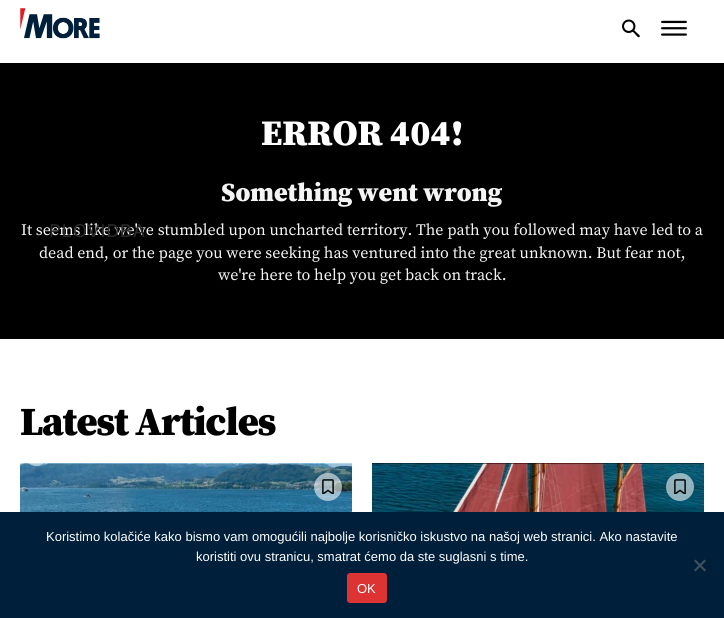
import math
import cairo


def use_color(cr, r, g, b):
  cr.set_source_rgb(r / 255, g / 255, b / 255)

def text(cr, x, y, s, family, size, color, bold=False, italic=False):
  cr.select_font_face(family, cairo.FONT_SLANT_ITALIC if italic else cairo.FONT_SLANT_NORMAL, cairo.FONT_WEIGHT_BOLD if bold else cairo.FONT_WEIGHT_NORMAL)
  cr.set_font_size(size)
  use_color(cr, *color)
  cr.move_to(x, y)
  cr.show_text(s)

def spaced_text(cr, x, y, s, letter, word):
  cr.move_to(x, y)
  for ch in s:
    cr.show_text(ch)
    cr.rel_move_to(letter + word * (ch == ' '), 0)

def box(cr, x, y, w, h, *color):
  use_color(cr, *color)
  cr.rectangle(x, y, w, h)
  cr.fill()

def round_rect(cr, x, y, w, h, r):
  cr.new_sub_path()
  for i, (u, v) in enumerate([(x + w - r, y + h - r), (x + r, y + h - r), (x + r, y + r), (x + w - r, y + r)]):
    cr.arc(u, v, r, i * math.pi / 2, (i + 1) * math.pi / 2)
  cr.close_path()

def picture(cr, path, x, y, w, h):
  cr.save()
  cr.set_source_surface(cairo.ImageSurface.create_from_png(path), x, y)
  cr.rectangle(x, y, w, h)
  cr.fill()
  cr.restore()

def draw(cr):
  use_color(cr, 255, 255, 255)
  cr.paint()
  picture(cr, "img_01.png", 20, 8, 80, 31)
  picture(cr, "img_02.png", 622, 19, 18, 19)
  picture(cr, "img_03.png", 661, 20, 26, 16)
  box(cr, 0, 63, 724, 276, 0, 0, 0)
  picture(cr, "img_04.png", 20, 463, 332, 49)
  cr.set_source_rgba(1, 1, 1, 0.56)
  cr.arc(328, 487, 14, 0, 2 * math.pi)
  cr.fill()
  picture(cr, "img_05.png", 322, 479, 12, 15)
  picture(cr, "img_06.png", 372, 463, 332, 49)
  cr.arc(680, 487, 14, 0, 2 * math.pi)
  cr.fill()
  picture(cr, "img_07.png", 674, 479, 12, 15)
  box(cr, 0, 512, 724, 106, 0, 31, 58)
  use_color(cr, 64, 80, 93)
  cr.new_path()
  cr.move_to(704.5, 559.5)
  cr.line_to(706, 561)
  cr.line_to(695.5, 571.5)
  cr.line_to(694, 570)
  cr.close_path()
  cr.fill()
  cr.new_path()
  cr.move_to(694, 561)
  cr.line_to(695.5, 559.5)
  cr.line_to(706, 570)
  cr.line_to(704.5, 571.5)
  cr.close_path()
  cr.fill()
  use_color(cr, 221, 51, 51)
  round_rect(cr, 347, 573, 40, 30, 3)
  cr.fill()
  text(cr, 261, 145, "ERROR 404!", "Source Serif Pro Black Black", 36, (255, 255, 255))
  text(cr, 221, 201, "Something went wrong", "Source Serif Pro Black Black", 26, (244, 244, 244))
  text(cr, 21, 235, "It seems like we've stumbled upon uncharted territory. The path you followed may have led to a", "Source Serif Pro", 16, (244, 244, 244))
  text(cr, 39, 258, "dead end, or the page you were seeking has ventured into the great unknown. But fear not,", "Source Serif Pro", 16, (244, 244, 244))
  text(cr, 218, 280, "we're here to help you get back on track.", "Source Serif Pro", 16, (244, 244, 244))
  cr.select_font_face("Source Serif Pro Black Black")
  cr.set_font_size(40)
  use_color(cr, 0, 0, 0)
  spaced_text(cr, 20, 435, "Latest Articles", -1, 0)
  cr.select_font_face("Geist")
  cr.set_font_size(18)
  use_color(cr, 43, 43, 43)
  spaced_text(cr, 49, 237, "PLOVIDBA", 1, 0)
  text(cr, 46, 541, "Koristimo kolačiće kako bismo vam omogućili najbolje korisničko iskustvo na našoj web stranici. Ako nastavite", "Liberation Sans", 13, (255, 255, 255))
  text(cr, 196, 561, "koristiti ovu stranicu, smatrat ćemo da ste suglasni s time.", "Liberation Sans", 13, (255, 255, 255))
  text(cr, 357, 593, "OK", "Liberation Sans", 13, (255, 255, 255))


surface = cairo.ImageSurface(cairo.FORMAT_RGB24, 724, 618)
cr = cairo.Context(surface)
options = cairo.FontOptions()
options.set_hint_metrics(cairo.HINT_METRICS_OFF)
options.set_hint_style(cairo.HINT_STYLE_NONE)
cr.set_font_options(options)
cr.set_miter_limit(4)
draw(cr)
surface.write_to_png("out.png")
